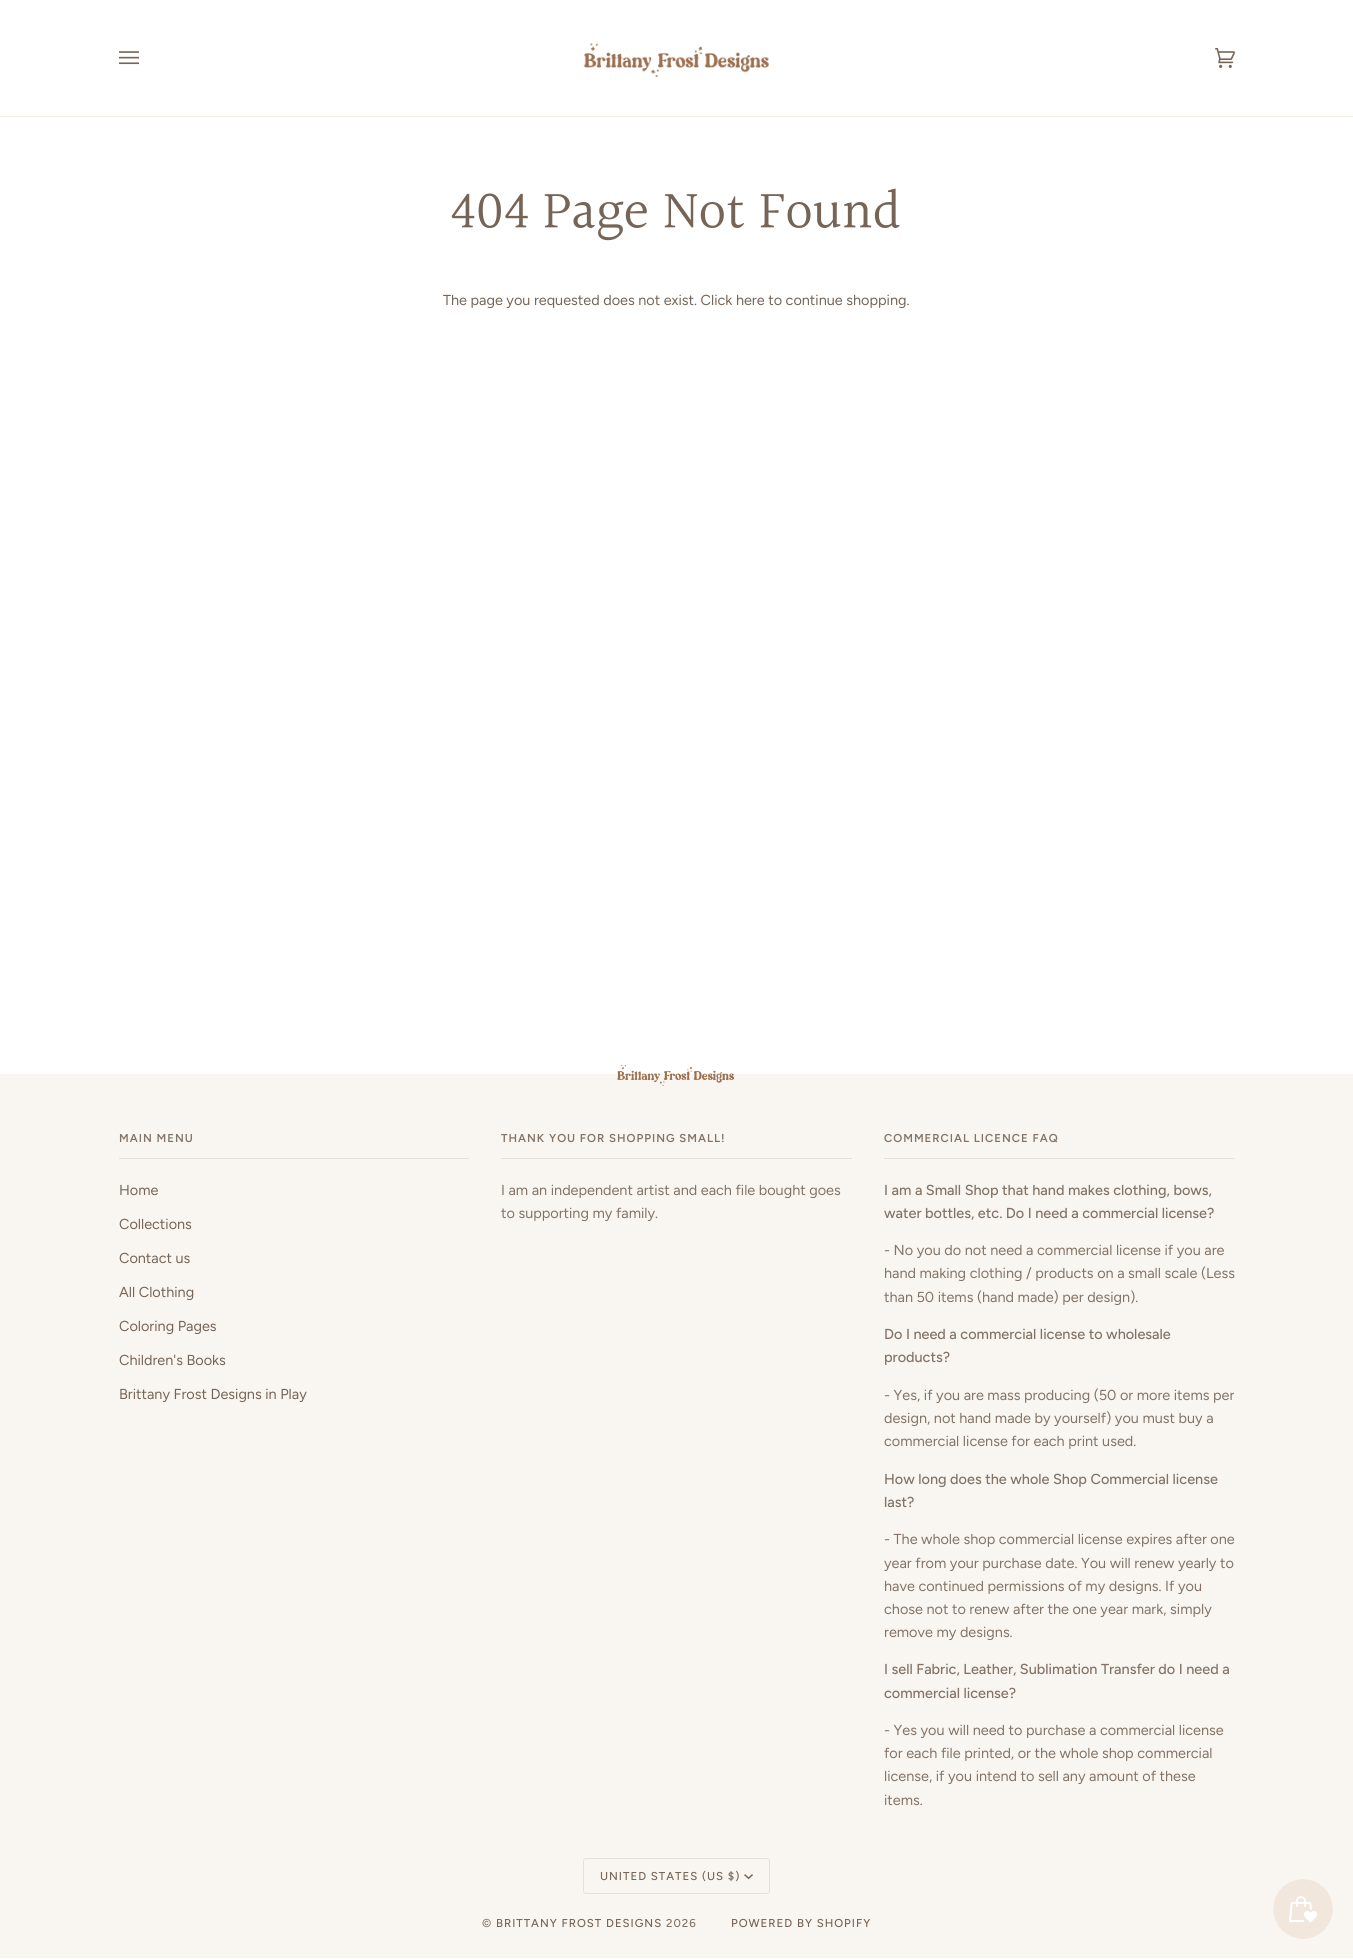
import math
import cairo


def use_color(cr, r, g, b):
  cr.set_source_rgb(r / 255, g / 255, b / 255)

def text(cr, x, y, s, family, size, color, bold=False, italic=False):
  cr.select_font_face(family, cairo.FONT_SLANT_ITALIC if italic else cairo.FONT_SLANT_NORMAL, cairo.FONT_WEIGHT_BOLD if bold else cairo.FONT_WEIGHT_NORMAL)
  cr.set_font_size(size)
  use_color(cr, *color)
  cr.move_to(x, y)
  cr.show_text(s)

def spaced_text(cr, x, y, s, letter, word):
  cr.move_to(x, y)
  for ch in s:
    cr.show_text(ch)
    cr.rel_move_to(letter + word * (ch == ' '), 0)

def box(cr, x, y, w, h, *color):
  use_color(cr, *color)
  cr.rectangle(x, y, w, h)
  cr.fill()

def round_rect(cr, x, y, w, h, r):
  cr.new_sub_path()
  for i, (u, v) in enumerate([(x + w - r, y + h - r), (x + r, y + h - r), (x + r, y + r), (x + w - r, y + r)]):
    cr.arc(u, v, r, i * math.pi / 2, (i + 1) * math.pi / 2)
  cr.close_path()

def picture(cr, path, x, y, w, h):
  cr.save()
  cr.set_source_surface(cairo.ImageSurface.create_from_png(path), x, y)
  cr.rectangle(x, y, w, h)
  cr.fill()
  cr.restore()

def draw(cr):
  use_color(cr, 255, 255, 255)
  cr.paint()
  box(cr, 0, 116, 1353, 1, 248, 240, 231)
  picture(cr, "img_01.png", 119, 51, 20, 14)
  picture(cr, "img_02.png", 583, 42, 187, 36)
  picture(cr, "img_03.png", 1215, 48, 20, 20)
  box(cr, 0, 1074, 1353, 884, 249, 246, 242)
  picture(cr, "img_04.png", 617, 1064, 118, 22)
  box(cr, 119, 1158, 350, 1, 229, 224, 219)
  box(cr, 501, 1158, 351, 1, 229, 224, 219)
  box(cr, 884, 1158, 350, 1, 229, 224, 219)
  round_rect(cr, 583.5, 1858.5, 186, 35, 2.5)
  cr.set_line_width(1)
  cr.stroke()
  picture(cr, "img_05.png", 744, 1874, 9, 6)
  picture(cr, "img_06.png", 1273, 1879, 60, 60)
  text(cr, 450, 230, "404 Page Not Found", "Halant", 54.25, (118, 100, 86))
  text(cr, 443, 305, "The page you requested does not exist. Click here to continue shopping.", "Figtree", 14.45, (118, 100, 86))
  cr.select_font_face("Figtree SemiBold")
  cr.set_font_size(11.4)
  use_color(cr, 131, 115, 102)
  spaced_text(cr, 119, 1142, "MAIN MENU", 1, 0)
  text(cr, 119, 1195, "Home", "Figtree", 14.45, (118, 100, 86))
  text(cr, 119, 1229, "Collections", "Figtree", 14.45, (118, 100, 86))
  text(cr, 119, 1263, "Contact us", "Figtree", 14.45, (118, 100, 86))
  text(cr, 119, 1297, "All Clothing", "Figtree", 14.45, (118, 100, 86))
  text(cr, 119, 1331, "Coloring Pages", "Figtree", 14.45, (118, 100, 86))
  text(cr, 119, 1365, "Children's Books", "Figtree", 14.45, (118, 100, 86))
  text(cr, 119, 1399, "Brittany Frost Designs in Play", "Figtree", 14.45, (118, 100, 86))
  cr.select_font_face("Figtree SemiBold")
  cr.set_font_size(11.4)
  use_color(cr, 131, 115, 102)
  spaced_text(cr, 501, 1142, "THANK YOU FOR SHOPPING SMALL!", 1, 0)
  text(cr, 501, 1195, "I am an independent artist and each file bought goes", "Figtree", 14.45, (131, 115, 102))
  text(cr, 501, 1218, "to supporting my family.", "Figtree", 14.45, (131, 115, 102))
  cr.select_font_face("Figtree SemiBold")
  cr.set_font_size(11.4)
  spaced_text(cr, 884, 1142, "COMMERCIAL LICENCE FAQ", 1, 0)
  text(cr, 884, 1195, "I am a Small Shop that hand makes clothing, bows,", "Figtree Medium", 14.45, (131, 115, 102))
  text(cr, 884, 1218, "water bottles, etc. Do I need a commercial license?", "Figtree Medium", 14.45, (131, 115, 102))
  text(cr, 884, 1255, "- No you do not need a commercial license if you are", "Figtree", 14.45, (131, 115, 102))
  text(cr, 884, 1278, "hand making clothing / products on a small scale (Less", "Figtree", 14.45, (131, 115, 102))
  text(cr, 884, 1302, "than 50 items (hand made) per design).", "Figtree", 14.45, (131, 115, 102))
  text(cr, 884, 1339, "Do I need a commercial license to wholesale", "Figtree Medium", 14.45, (131, 115, 102))
  text(cr, 884, 1362, "products?", "Figtree Medium", 14.45, (131, 115, 102))
  text(cr, 884, 1400, "- Yes, if you are mass producing (50 or more items per", "Figtree", 14.45, (131, 115, 102))
  text(cr, 884, 1423, "design, not hand made by yourself) you must buy a", "Figtree", 14.45, (131, 115, 102))
  text(cr, 884, 1446, "commercial license for each print used.", "Figtree", 14.45, (131, 115, 102))
  text(cr, 884, 1484, "How long does the whole Shop Commercial license", "Figtree Medium", 14.45, (131, 115, 102))
  text(cr, 884, 1507, "last?", "Figtree Medium", 14.45, (131, 115, 102))
  text(cr, 884, 1544, "- The whole shop commercial license expires after one", "Figtree", 14.45, (131, 115, 102))
  text(cr, 884, 1568, "year from your purchase date. You will renew yearly to", "Figtree", 14.45, (131, 115, 102))
  text(cr, 884, 1591, "have continued permissions of my designs. If you", "Figtree", 14.45, (131, 115, 102))
  text(cr, 884, 1614, "chose not to renew after the one year mark, simply", "Figtree", 14.45, (131, 115, 102))
  text(cr, 884, 1637, "remove my designs.", "Figtree", 14.45, (131, 115, 102))
  text(cr, 884, 1674, "I sell Fabric, Leather, Sublimation Transfer do I need a", "Figtree Medium", 14.45, (131, 115, 102))
  text(cr, 884, 1698, "commercial license?", "Figtree Medium", 14.45, (131, 115, 102))
  text(cr, 884, 1735, "- Yes you will need to purchase a commercial license", "Figtree", 14.45, (131, 115, 102))
  text(cr, 884, 1758, "for each file printed, or the whole shop commercial", "Figtree", 14.45, (131, 115, 102))
  text(cr, 884, 1781, "license, if you intend to sell any amount of these", "Figtree", 14.45, (131, 115, 102))
  text(cr, 884, 1805, "items.", "Figtree", 14.45, (131, 115, 102))
  cr.select_font_face("Figtree Medium")
  cr.set_font_size(11.4)
  use_color(cr, 118, 100, 86)
  spaced_text(cr, 600, 1880, "UNITED STATES (US $)", 1, 0)
  use_color(cr, 131, 115, 102)
  spaced_text(cr, 482, 1927, "©", 1, 0)
  use_color(cr, 118, 100, 86)
  spaced_text(cr, 496, 1927, "BRITTANY FROST DESIGNS", 1, 0)
  use_color(cr, 131, 115, 102)
  spaced_text(cr, 666, 1927, "2026", 1, 0)
  use_color(cr, 118, 100, 86)
  spaced_text(cr, 731, 1927, "POWERED BY SHOPIFY", 1, 0)


surface = cairo.ImageSurface(cairo.FORMAT_RGB24, 1353, 1959)
cr = cairo.Context(surface)
options = cairo.FontOptions()
options.set_hint_metrics(cairo.HINT_METRICS_OFF)
options.set_hint_style(cairo.HINT_STYLE_NONE)
cr.set_font_options(options)
cr.set_miter_limit(4)
draw(cr)
surface.write_to_png("out.png")
